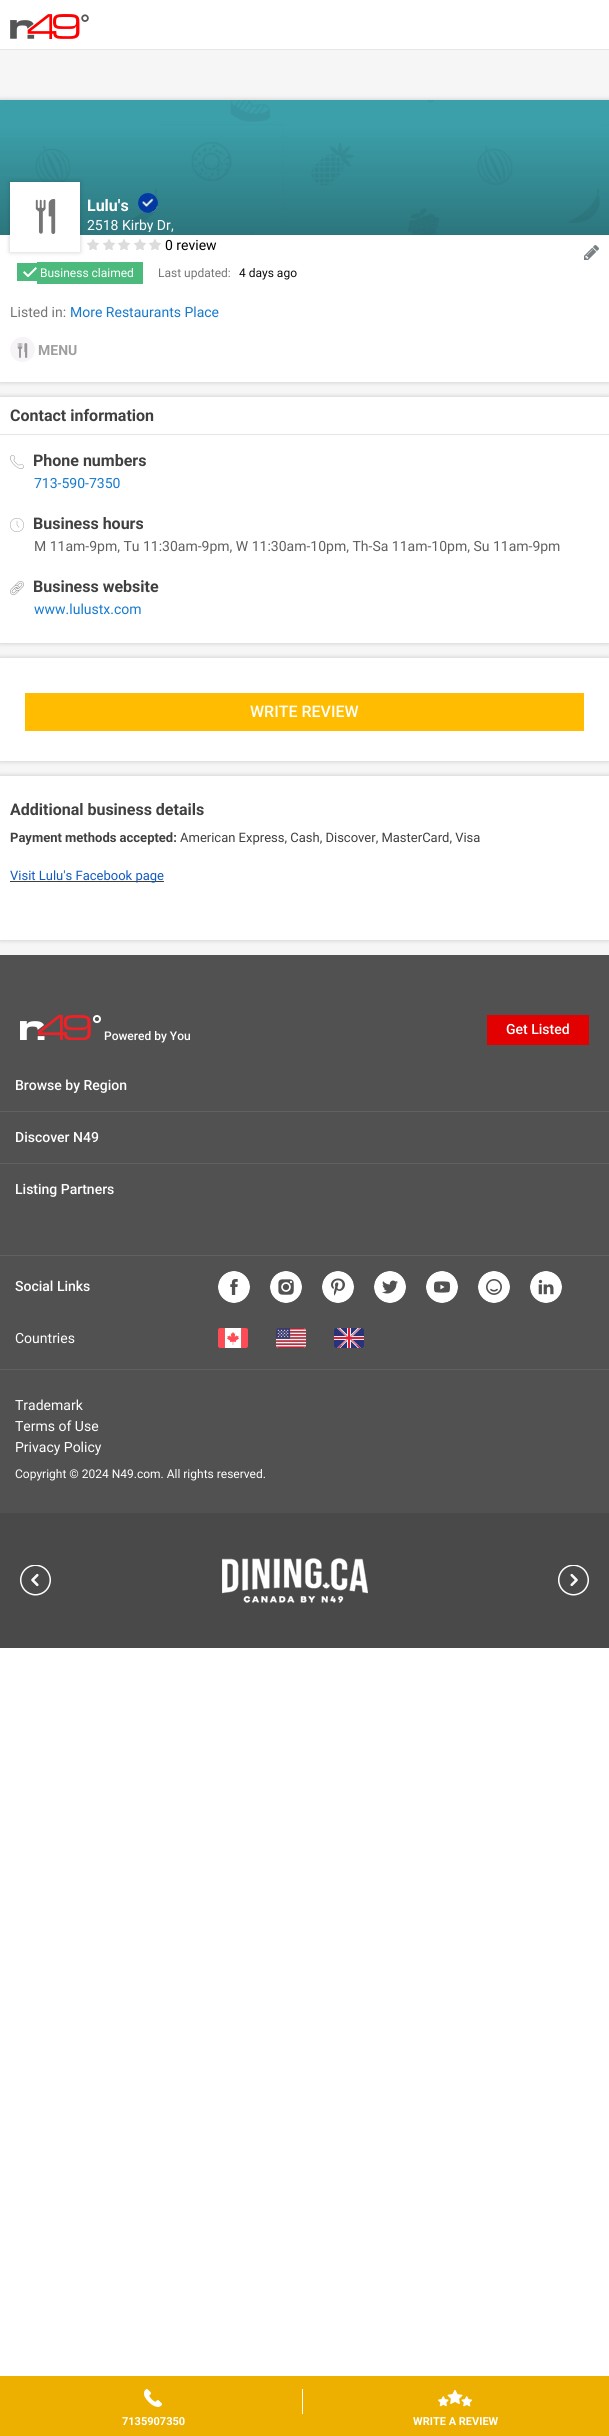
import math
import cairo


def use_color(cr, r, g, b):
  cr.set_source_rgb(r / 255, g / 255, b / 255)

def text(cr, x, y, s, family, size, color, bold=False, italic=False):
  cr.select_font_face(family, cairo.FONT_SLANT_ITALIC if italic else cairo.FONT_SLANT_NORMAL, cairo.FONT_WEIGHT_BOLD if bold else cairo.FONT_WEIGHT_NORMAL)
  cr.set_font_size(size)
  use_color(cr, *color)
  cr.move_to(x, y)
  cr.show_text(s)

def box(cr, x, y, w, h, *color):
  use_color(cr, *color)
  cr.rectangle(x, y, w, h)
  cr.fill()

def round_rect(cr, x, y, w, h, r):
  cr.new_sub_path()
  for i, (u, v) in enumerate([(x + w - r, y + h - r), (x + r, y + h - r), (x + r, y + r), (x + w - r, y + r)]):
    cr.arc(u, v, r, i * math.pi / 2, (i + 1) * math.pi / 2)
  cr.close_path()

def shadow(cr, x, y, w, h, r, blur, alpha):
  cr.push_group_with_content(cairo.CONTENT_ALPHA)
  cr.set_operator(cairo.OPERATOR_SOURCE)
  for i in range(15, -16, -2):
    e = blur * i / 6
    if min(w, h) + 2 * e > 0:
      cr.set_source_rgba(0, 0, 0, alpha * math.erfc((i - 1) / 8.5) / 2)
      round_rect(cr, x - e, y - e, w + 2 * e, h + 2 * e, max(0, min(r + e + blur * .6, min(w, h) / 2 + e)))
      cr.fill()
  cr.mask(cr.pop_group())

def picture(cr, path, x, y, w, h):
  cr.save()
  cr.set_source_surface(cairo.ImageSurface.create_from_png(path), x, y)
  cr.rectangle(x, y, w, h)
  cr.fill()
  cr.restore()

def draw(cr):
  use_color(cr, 255, 255, 255)
  cr.paint()
  box(cr, 0, 50, 609, 905, 246, 246, 246)
  box(cr, 0, 49, 609, 1, 231, 231, 231)
  picture(cr, "img_01.png", 10, 14, 79, 25)
  use_color(cr, 0, 0, 0)
  shadow(cr, 0, 100, 609, 282, 0, 2.5, 0.2)
  box(cr, 0, 235, 609, 147, 255, 255, 255)
  picture(cr, "img_02.png", 0, 100, 609, 135)
  use_color(cr, 0, 0, 0)
  shadow(cr, 10, 182, 70, 70, 0, 2.5, 0.2)
  box(cr, 10, 182, 70, 70, 255, 255, 255)
  picture(cr, "img_03.png", 35, 199, 21, 35)
  use_color(cr, 22, 122, 206)
  cr.arc(148, 203, 10, 0, 2 * math.pi)
  cr.fill()
  picture(cr, "img_04.png", 138, 193, 20, 20)
  picture(cr, "img_05.png", 87, 239, 12, 11)
  picture(cr, "img_05.png", 103, 239, 12, 11)
  picture(cr, "img_05.png", 118, 239, 12, 11)
  picture(cr, "img_05.png", 134, 239, 12, 11)
  picture(cr, "img_05.png", 149, 239, 12, 11)
  picture(cr, "img_06.png", 584, 245, 15, 15)
  box(cr, 17, 263, 20, 18, 77, 186, 125)
  picture(cr, "img_07.png", 23, 267, 14, 10)
  box(cr, 37, 262, 106, 22, 77, 186, 125)
  use_color(cr, 246, 244, 247)
  cr.arc(22.5, 349.5, 12.5, 0, 2 * math.pi)
  cr.fill()
  picture(cr, "img_08.png", 17, 343, 11, 15)
  use_color(cr, 0, 0, 0)
  shadow(cr, 0, 397, 609, 246, 0, 2.5, 0.2)
  box(cr, 0, 397, 609, 246, 255, 255, 255)
  box(cr, 0, 434, 609, 1, 230, 230, 230)
  picture(cr, "img_09.png", 10, 455, 14, 14)
  picture(cr, "img_10.png", 10, 518, 14, 14)
  picture(cr, "img_11.png", 10, 581, 14, 14)
  use_color(cr, 0, 0, 0)
  shadow(cr, 0, 658, 609, 103, 0, 2.5, 0.2)
  box(cr, 0, 658, 609, 103, 255, 255, 255)
  box(cr, 25, 693, 559, 38, 255, 188, 0)
  use_color(cr, 0, 0, 0)
  shadow(cr, 0, 776, 609, 164, 0, 2.5, 0.2)
  box(cr, 0, 776, 609, 164, 255, 255, 255)
  box(cr, 10, 881, 154, 1, 64, 64, 64)
  box(cr, 0, 2376, 609, 60, 237, 176, 0)
  box(cr, 302, 2389, 1, 25, 255, 255, 255)
  picture(cr, "img_12.png", 144, 2389, 18, 18)
  picture(cr, "img_13.png", 438, 2390, 34, 17)
  box(cr, 0, 955, 609, 558, 81, 81, 81)
  box(cr, 0, 1163, 609, 1, 97, 97, 97)
  box(cr, 487, 1015, 102, 30, 226, 0, 0)
  box(cr, 0, 1369, 609, 1, 97, 97, 97)
  picture(cr, "img_14.png", 20, 1015, 81, 25)
  box(cr, 0, 1111, 609, 1, 97, 97, 97)
  box(cr, 0, 1255, 609, 1, 97, 97, 97)
  picture(cr, "img_15.png", 218, 1271, 32, 32)
  picture(cr, "img_16.png", 270, 1271, 32, 32)
  picture(cr, "img_17.png", 322, 1271, 32, 32)
  picture(cr, "img_18.png", 374, 1271, 32, 32)
  picture(cr, "img_19.png", 426, 1271, 32, 32)
  picture(cr, "img_20.png", 478, 1271, 32, 32)
  picture(cr, "img_21.png", 530, 1271, 32, 32)
  picture(cr, "img_22.png", 218, 1328, 30, 20)
  picture(cr, "img_23.png", 276, 1328, 30, 20)
  picture(cr, "img_24.png", 334, 1328, 30, 20)
  box(cr, 0, 1513, 609, 135, 73, 73, 73)
  picture(cr, "img_25.png", 20, 1565, 31, 31)
  picture(cr, "img_26.png", 222, 1558, 146, 45)
  picture(cr, "img_27.png", 558, 1565, 31, 31)
  text(cr, 87, 211, "Lulu's", "Roboto", 16, (255, 255, 255), bold=True)
  cr.save()
  cr.rectangle(87, 215, 442, 17)
  cr.clip()
  text(cr, 87, 230, "2518 Kirby Dr", "Roboto", 14, (255, 255, 255))
  cr.restore()
  text(cr, 171, 230, ",", "Roboto", 14, (255, 255, 255))
  text(cr, 165, 250, "0 review", "Roboto", 14, (0, 0, 0))
  text(cr, 40, 277, "Business claimed", "Roboto", 12, (255, 255, 255))
  text(cr, 158, 277, "Last updated:", "Roboto", 12, (117, 117, 117))
  text(cr, 239, 277, "4 days ago", "Roboto", 12, (13, 13, 13))
  text(cr, 10, 317, "Listed in:", "Roboto", 14, (117, 117, 117))
  text(cr, 70, 317, "More Restaurants Place", "Roboto", 14, (22, 122, 206))
  text(cr, 38, 355, "MENU", "Roboto", 14, (158, 158, 158), bold=True)
  text(cr, 10, 421, "Contact information", "Roboto", 16, (64, 64, 64), bold=True)
  text(cr, 33, 466, "Phone numbers", "Roboto", 16, (64, 64, 64), bold=True)
  text(cr, 34, 488, "713-590-7350", "Roboto", 14, (22, 122, 206))
  text(cr, 33, 529, "Business hours", "Roboto", 16, (64, 64, 64), bold=True)
  text(cr, 34, 551, "M 11am-9pm, Tu 11:30am-9pm, W 11:30am-10pm, Th-Sa 11am-10pm, Su 11am-9pm", "Roboto", 14, (96, 96, 96))
  text(cr, 33, 592, "Business website", "Roboto", 16, (64, 64, 64), bold=True)
  text(cr, 34, 614, "www.lulustx.com", "Roboto", 14, (22, 122, 206))
  text(cr, 250, 717, "WRITE REVIEW", "Roboto Medium", 16, (255, 255, 255))
  text(cr, 10, 815, "Additional business details", "Roboto", 16, (64, 64, 64), bold=True)
  text(cr, 10, 842, "Payment methods accepted:", "Roboto", 13, (64, 64, 64), bold=True)
  text(cr, 180, 842, "American Express, Cash, Discover, MasterCard, Visa", "Roboto", 13, (64, 64, 64))
  text(cr, 10, 880, "Visit Lulu's Facebook page", "Roboto", 13, (19, 90, 194))
  text(cr, 122, 2425, "7135907350", "Roboto", 11, (255, 255, 255), bold=True)
  text(cr, 413, 2425, "WRITE A REVIEW", "Roboto", 11, (255, 255, 255), bold=True)
  text(cr, 506, 1034, "Get Listed", "Roboto Medium", 14, (255, 255, 255))
  text(cr, 15, 1194, "Listing Partners", "Roboto Medium", 14, (255, 255, 255))
  text(cr, 104, 1040, "Powered by You", "Roboto Medium", 12, (255, 255, 255))
  text(cr, 15, 1410, "Trademark", "Roboto", 14, (255, 255, 255))
  text(cr, 15, 1431, "Terms of Use", "Roboto", 14, (255, 255, 255))
  text(cr, 15, 1452, "Privacy Policy", "Roboto", 14, (255, 255, 255))
  text(cr, 15, 1478, "Copyright © 2024 N49.com. All rights reserved.", "Roboto", 12, (255, 255, 255))
  text(cr, 15, 1090, "Browse by Region", "Roboto Medium", 14, (255, 255, 255))
  text(cr, 15, 1142, "Discover N49", "Roboto Medium", 14, (255, 255, 255))
  text(cr, 15, 1291, "Social Links", "Roboto Medium", 14, (255, 255, 255))
  text(cr, 15, 1343, "Countries", "Roboto", 14, (255, 255, 255))


surface = cairo.ImageSurface(cairo.FORMAT_RGB24, 609, 2436)
cr = cairo.Context(surface)
options = cairo.FontOptions()
options.set_hint_metrics(cairo.HINT_METRICS_OFF)
options.set_hint_style(cairo.HINT_STYLE_NONE)
cr.set_font_options(options)
cr.set_miter_limit(4)
draw(cr)
surface.write_to_png("out.png")
